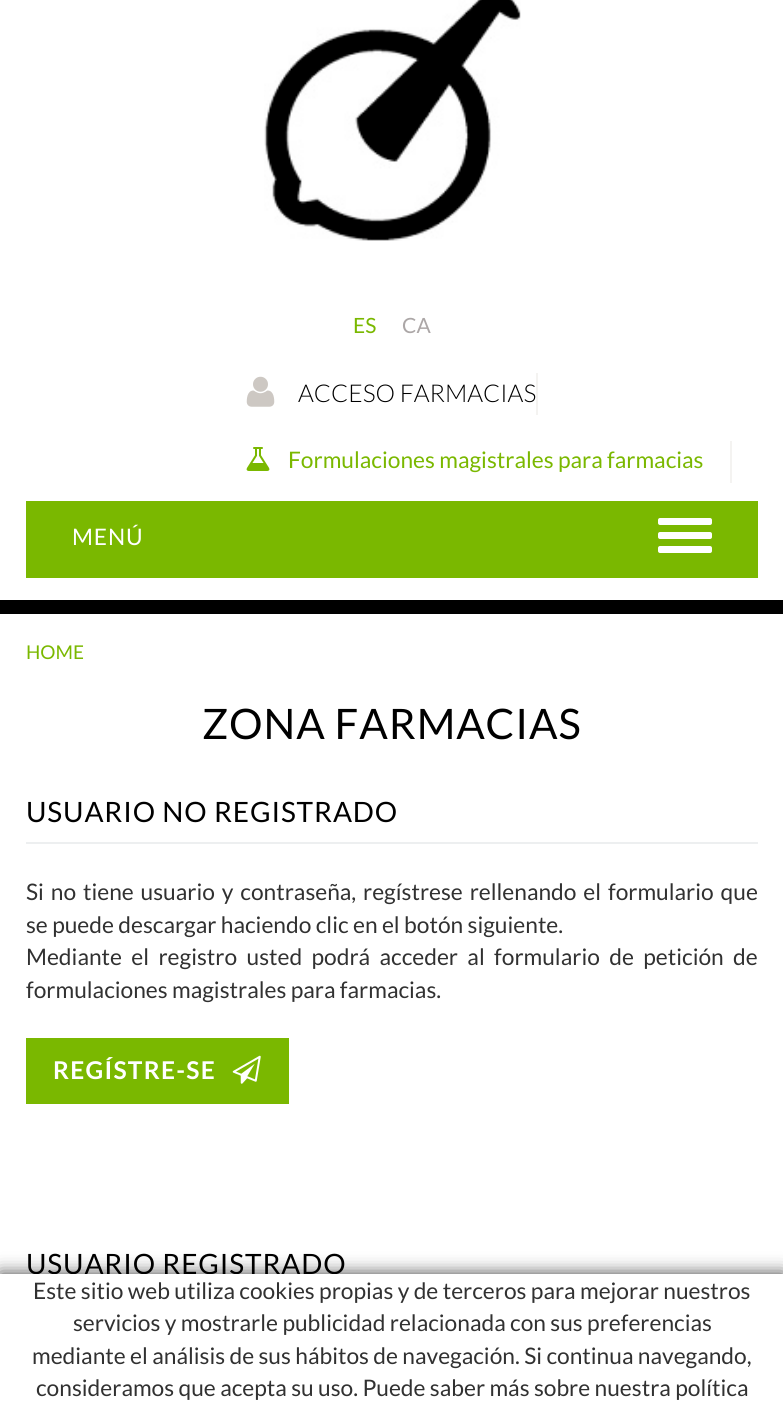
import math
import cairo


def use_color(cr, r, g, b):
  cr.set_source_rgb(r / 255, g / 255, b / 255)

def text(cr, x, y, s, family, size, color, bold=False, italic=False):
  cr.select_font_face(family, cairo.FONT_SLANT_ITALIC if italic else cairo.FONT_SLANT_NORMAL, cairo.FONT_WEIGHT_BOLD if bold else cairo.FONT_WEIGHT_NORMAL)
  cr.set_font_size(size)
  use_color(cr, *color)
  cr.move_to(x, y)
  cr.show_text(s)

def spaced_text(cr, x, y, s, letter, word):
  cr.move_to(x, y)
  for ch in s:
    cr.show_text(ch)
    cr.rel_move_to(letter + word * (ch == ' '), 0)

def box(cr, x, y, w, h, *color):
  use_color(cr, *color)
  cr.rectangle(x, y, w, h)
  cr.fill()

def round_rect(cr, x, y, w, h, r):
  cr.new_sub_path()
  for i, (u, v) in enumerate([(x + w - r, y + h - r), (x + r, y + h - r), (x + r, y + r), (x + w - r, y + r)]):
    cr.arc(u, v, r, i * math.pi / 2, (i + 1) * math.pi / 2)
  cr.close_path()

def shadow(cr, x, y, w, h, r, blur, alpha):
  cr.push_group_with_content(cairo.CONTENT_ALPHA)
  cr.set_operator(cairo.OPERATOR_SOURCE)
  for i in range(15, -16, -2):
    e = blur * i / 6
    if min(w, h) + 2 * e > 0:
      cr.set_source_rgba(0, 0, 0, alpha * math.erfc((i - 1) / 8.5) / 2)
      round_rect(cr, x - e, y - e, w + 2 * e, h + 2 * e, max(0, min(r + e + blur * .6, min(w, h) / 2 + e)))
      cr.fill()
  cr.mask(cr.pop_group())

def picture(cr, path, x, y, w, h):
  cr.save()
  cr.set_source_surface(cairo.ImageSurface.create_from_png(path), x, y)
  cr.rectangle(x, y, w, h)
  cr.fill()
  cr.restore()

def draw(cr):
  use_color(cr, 255, 255, 255)
  cr.paint()
  picture(cr, "img_01.png", 264, 0, 257, 241)
  box(cr, 536, 373, 2, 42, 244, 243, 241)
  picture(cr, "img_02.png", 246, 376, 29, 31)
  box(cr, 730, 441, 2, 42, 244, 243, 241)
  picture(cr, "img_03.png", 246, 447, 24, 24)
  box(cr, 0, 600, 783, 14, 0, 0, 0)
  box(cr, 26, 501, 732, 77, 122, 184, 0)
  use_color(cr, 255, 255, 255)
  round_rect(cr, 658, 518, 54, 7, 2)
  cr.fill()
  round_rect(cr, 658, 532, 54, 7, 2)
  cr.fill()
  round_rect(cr, 658, 546, 54, 7, 2)
  cr.fill()
  box(cr, 26, 842, 732, 2, 237, 239, 240)
  box(cr, 26, 1038, 263, 66, 122, 184, 0)
  picture(cr, "img_04.png", 232, 1055, 29, 29)
  use_color(cr, 68, 68, 68)
  shadow(cr, 0, 1274, 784, 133, 0, 9, 1)
  text(cr, 353, 333, "ES", "Lato", 21, (122, 184, 0))
  text(cr, 402, 333, "CA", "Lato", 21, (172, 167, 167))
  text(cr, 298, 402, "ACCESO FARMACIAS", "Lato Light", 24.5, (0, 0, 0))
  text(cr, 288, 468, "Formulaciones magistrales para farmacias", "Lato", 22.75, (122, 184, 0))
  use_color(cr, 255, 255, 255)
  spaced_text(cr, 72, 545, "MENÚ", 0.9, 0)
  text(cr, 26, 659, "HOME", "Lato", 19, (122, 184, 0))
  cr.set_font_size(42)
  use_color(cr, 0, 0, 0)
  spaced_text(cr, 202, 739, "ZONA FARMACIAS", 0.9, 0)
  cr.set_font_size(28)
  spaced_text(cr, 26, 822, "USUARIO NO REGISTRADO", 0.9, 0)
  cr.set_font_size(22.75)
  use_color(cr, 49, 49, 49)
  spaced_text(cr, 26, 900, "Si no tiene usuario y contraseña, regístrese rellenando el formulario que", 0, 2.5)
  text(cr, 26, 933, "se puede descargar haciendo clic en el botón siguiente.", "Lato", 22.75, (49, 49, 49))
  spaced_text(cr, 26, 965, "Mediante el registro usted podrá acceder al formulario de petición de", 0, 5)
  text(cr, 26, 998, "formulaciones magistrales para farmacias.", "Lato", 22.75, (49, 49, 49))
  cr.select_font_face("Lato", cairo.FONT_SLANT_NORMAL, cairo.FONT_WEIGHT_BOLD)
  cr.set_font_size(24.5)
  use_color(cr, 255, 255, 255)
  spaced_text(cr, 53, 1079, "REGÍSTRE-SE", 1.25, 0)
  cr.select_font_face("Lato")
  cr.set_font_size(28)
  use_color(cr, 0, 0, 0)
  spaced_text(cr, 26, 1274, "USUARIO REGISTRADO", 0.9, 0)
  box(cr, 0, 1274, 783, 132, 255, 255, 255)
  text(cr, 33, 1299, "Este sitio web utiliza cookies propias y de terceros para mejorar nuestros", "Lato", 22.75, (49, 49, 49))
  text(cr, 73, 1331, "servicios y mostrarle publicidad relacionada con sus preferencias", "Lato", 22.75, (49, 49, 49))
  text(cr, 32, 1364, "mediante el análisis de sus hábitos de navegación. Si continua navegando,", "Lato", 22.75, (49, 49, 49))
  text(cr, 36, 1396, "consideramos que acepta su uso. Puede saber más sobre nuestra política", "Lato", 22.75, (49, 49, 49))


surface = cairo.ImageSurface(cairo.FORMAT_RGB24, 783, 1406)
cr = cairo.Context(surface)
options = cairo.FontOptions()
options.set_hint_metrics(cairo.HINT_METRICS_OFF)
options.set_hint_style(cairo.HINT_STYLE_NONE)
cr.set_font_options(options)
cr.set_miter_limit(4)
draw(cr)
surface.write_to_png("out.png")
